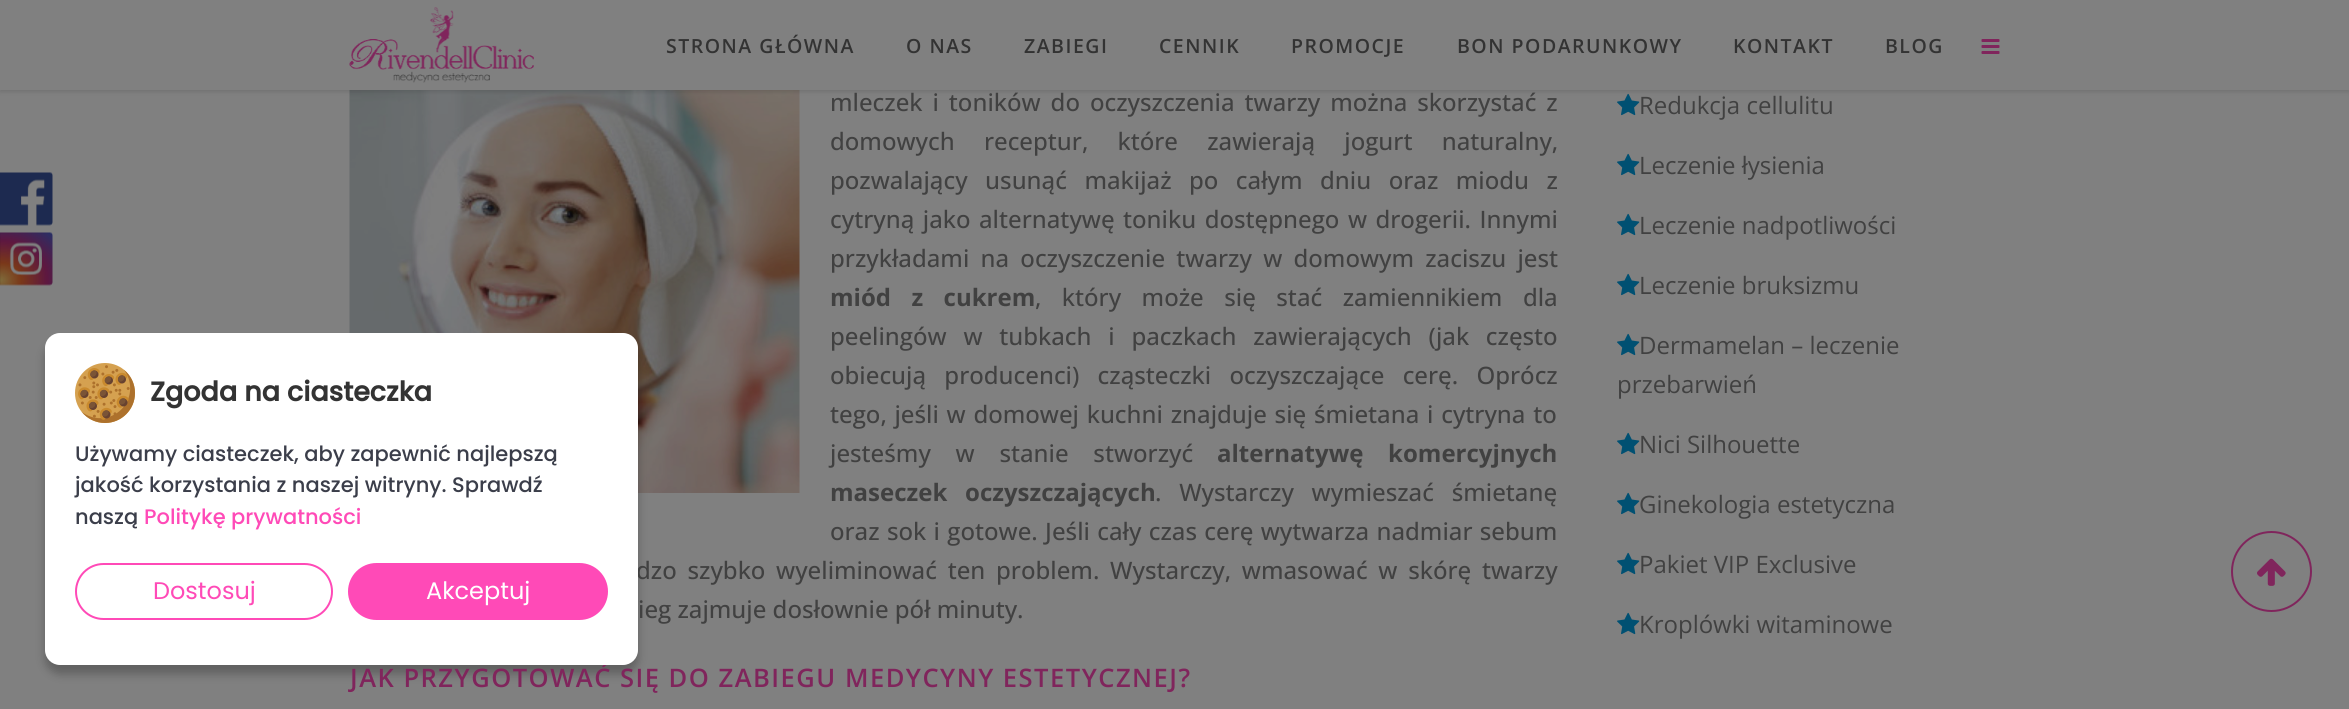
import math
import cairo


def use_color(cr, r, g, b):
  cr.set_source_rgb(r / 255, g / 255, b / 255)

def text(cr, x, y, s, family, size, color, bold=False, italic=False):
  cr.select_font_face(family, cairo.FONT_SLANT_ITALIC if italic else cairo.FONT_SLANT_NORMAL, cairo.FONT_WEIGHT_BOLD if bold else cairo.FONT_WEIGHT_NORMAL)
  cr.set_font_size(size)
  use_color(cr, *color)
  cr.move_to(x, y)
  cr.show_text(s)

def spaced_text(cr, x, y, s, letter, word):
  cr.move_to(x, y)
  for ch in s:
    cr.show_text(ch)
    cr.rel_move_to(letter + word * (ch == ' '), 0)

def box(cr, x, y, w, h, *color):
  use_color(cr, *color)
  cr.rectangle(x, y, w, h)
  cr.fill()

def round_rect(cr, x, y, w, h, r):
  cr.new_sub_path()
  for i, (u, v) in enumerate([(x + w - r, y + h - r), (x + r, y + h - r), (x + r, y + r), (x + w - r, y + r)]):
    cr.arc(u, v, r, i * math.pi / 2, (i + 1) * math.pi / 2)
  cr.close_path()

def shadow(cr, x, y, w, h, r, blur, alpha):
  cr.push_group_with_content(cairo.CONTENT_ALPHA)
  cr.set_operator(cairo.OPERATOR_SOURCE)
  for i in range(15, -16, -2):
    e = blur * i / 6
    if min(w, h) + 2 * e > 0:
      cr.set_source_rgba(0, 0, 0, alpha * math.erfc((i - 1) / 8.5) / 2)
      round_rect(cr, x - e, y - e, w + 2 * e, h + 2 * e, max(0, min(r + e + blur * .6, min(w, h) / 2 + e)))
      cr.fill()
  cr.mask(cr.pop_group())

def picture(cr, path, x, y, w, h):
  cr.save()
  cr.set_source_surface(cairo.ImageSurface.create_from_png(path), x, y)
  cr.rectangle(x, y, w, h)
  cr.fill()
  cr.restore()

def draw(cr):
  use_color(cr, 128, 128, 128)
  cr.paint()
  picture(cr, "img_01.png", 0, 172, 53, 54)
  picture(cr, "img_02.png", 0, 232, 53, 54)
  picture(cr, "img_05.png", 349, 90, 451, 403)
  picture(cr, "img_06.png", 1617, 93, 23, 23)
  use_color(cr, 0, 0, 0)
  shadow(cr, 0, 2, 2349, 90, 0, 2, 0.11)
  box(cr, 0, 0, 2349, 90, 128, 128, 128)
  picture(cr, "img_03.png", 349, 7, 185, 76)
  picture(cr, "img_04.png", 1981, 39, 19, 15)
  picture(cr, "img_06.png", 1617, 153, 23, 23)
  picture(cr, "img_06.png", 1617, 213, 23, 23)
  picture(cr, "img_06.png", 1617, 273, 23, 23)
  picture(cr, "img_06.png", 1617, 333, 23, 23)
  picture(cr, "img_06.png", 1617, 432, 23, 23)
  picture(cr, "img_06.png", 1617, 492, 23, 23)
  picture(cr, "img_06.png", 1617, 552, 23, 23)
  picture(cr, "img_06.png", 1617, 612, 23, 23)
  cr.arc(2271.5, 571.5, 39.5, 0, 2 * math.pi)
  use_color(cr, 128, 37, 92)
  cr.stroke()
  picture(cr, "img_07.png", 2257, 558, 29, 28)
  use_color(cr, 0, 0, 0)
  shadow(cr, 45, 342, 593, 332, 15, 4.5, 0.25)
  cr.select_font_face("Open Sans SemiBold")
  cr.set_font_size(19.5)
  use_color(cr, 51, 51, 51)
  spaced_text(cr, 666, 53, "STRONA GŁÓWNA", 1.5, 0)
  spaced_text(cr, 906, 53, "O NAS", 1.5, 0)
  spaced_text(cr, 1024, 53, "ZABIEGI", 1.5, 0)
  spaced_text(cr, 1159, 53, "CENNIK", 1.5, 0)
  spaced_text(cr, 1291, 53, "PROMOCJE", 1.5, 0)
  spaced_text(cr, 1457, 53, "BON PODARUNKOWY", 1.5, 0)
  spaced_text(cr, 1733, 53, "KONTAKT", 1.5, 0)
  spaced_text(cr, 1885, 53, "BLOG", 1.5, 0)
  cr.select_font_face("Open Sans Medium")
  cr.set_font_size(24)
  use_color(cr, 65, 65, 65)
  spaced_text(cr, 830, 111, "mleczek i toników do oczyszczenia twarzy można skorzystać z", 0, 3.75)
  spaced_text(cr, 830, 150, "domowych receptur, które zawierają jogurt naturalny,", 0, 23)
  spaced_text(cr, 830, 189, "pozwalający usunąć makijaż po całym dniu oraz miodu z", 0, 11.25)
  spaced_text(cr, 830, 228, "cytryną jako alternatywę toniku dostępnego w drogerii. Innymi", 0, 2.25)
  spaced_text(cr, 830, 267, "przykładami na oczyszczenie twarzy w domowym zaciszu jest", 0, 5)
  cr.select_font_face("Open Sans", cairo.FONT_SLANT_NORMAL, cairo.FONT_WEIGHT_BOLD)
  spaced_text(cr, 830, 306, "miód z cukrem", 0, 14.25)
  cr.select_font_face("Open Sans Medium")
  spaced_text(cr, 1035, 306, ", który może się stać zamiennikiem dla", 0, 14.25)
  spaced_text(cr, 830, 345, "peelingów w tubkach i paczkach zawierających (jak często", 0, 10.5)
  spaced_text(cr, 830, 384, "obiecują producenci) cząsteczki oczyszczające cerę. Oprócz", 0, 12)
  spaced_text(cr, 830, 423, "tego, jeśli w domowej kuchni znajduje się śmietana i cytryna to", 0, 1.5)
  spaced_text(cr, 830, 462, "jesteśmy w stanie stworzyć", 0, 18.5)
  cr.select_font_face("Open Sans", cairo.FONT_SLANT_NORMAL, cairo.FONT_WEIGHT_BOLD)
  spaced_text(cr, 1217, 462, "alternatywę komercyjnych", 0, 18.5)
  spaced_text(cr, 830, 501, "maseczek oczyszczających", 0, 11.5)
  cr.select_font_face("Open Sans Medium")
  spaced_text(cr, 1155, 501, ". Wystarczy wymieszać śmietanę", 0, 11.5)
  spaced_text(cr, 830, 540, "oraz sok i gotowe. Jeśli cały czas cerę wytwarza nadmiar sebum", 0, 1.1)
  spaced_text(cr, 636, 579, "dzo szybko wyeliminować ten problem. Wystarczy, wmasować w skórę twarzy", 0, 4.5)
  text(cr, 638, 618, "ieg zajmuje dosłownie pół minuty.", "Open Sans Medium", 24, (65, 65, 65))
  cr.select_font_face("Open Sans SemiBold")
  cr.set_font_size(25.5)
  use_color(cr, 128, 37, 92)
  spaced_text(cr, 350, 687, "JAK PRZYGOTOWAĆ SIĘ DO ZABIEGU MEDYCYNY ESTETYCZNEJ?", 1.5, 0)
  text(cr, 1639, 114, "Redukcja cellulitu", "Open Sans", 24, (65, 65, 65))
  text(cr, 1639, 174, "Leczenie łysienia", "Open Sans", 24, (65, 65, 65))
  text(cr, 1639, 234, "Leczenie nadpotliwości", "Open Sans", 24, (65, 65, 65))
  text(cr, 1639, 294, "Leczenie bruksizmu", "Open Sans", 24, (65, 65, 65))
  text(cr, 1639, 354, "Dermamelan – leczenie", "Open Sans", 24, (65, 65, 65))
  text(cr, 1617, 393, "przebarwień", "Open Sans", 24, (65, 65, 65))
  text(cr, 1639, 453, "Nici Silhouette", "Open Sans", 24, (65, 65, 65))
  text(cr, 1639, 513, "Ginekologia estetyczna", "Open Sans", 24, (65, 65, 65))
  text(cr, 1639, 573, "Pakiet VIP Exclusive", "Open Sans", 24, (65, 65, 65))
  text(cr, 1639, 633, "Kroplówki witaminowe", "Open Sans", 24, (65, 65, 65))
  use_color(cr, 255, 255, 255)
  round_rect(cr, 45, 333, 593, 332, 15)
  cr.fill()
  picture(cr, "img_08.png", 75, 363, 60, 60)
  text(cr, 150, 401, "Zgoda na ciasteczka", "Poppins", 27, (51, 51, 51), bold=True)
  text(cr, 75, 461, "Używamy ciasteczek, aby zapewnić najlepszą", "Poppins Medium", 21, (59, 62, 74))
  text(cr, 75, 492, "jakość korzystania z naszej witryny. Sprawdź", "Poppins Medium", 21, (59, 62, 74))
  text(cr, 75, 524, "naszą", "Poppins Medium", 21, (59, 62, 74))
  text(cr, 144, 524, "Politykę prywatności", "Poppins Medium", 21, (255, 74, 183))
  round_rect(cr, 76, 564, 256, 55, 27.5)
  cr.stroke()
  text(cr, 153, 599, "Dostosuj", "Poppins", 24, (255, 74, 183))
  round_rect(cr, 349, 564, 258, 55, 27.5)
  cr.fill_preserve()
  cr.stroke()
  text(cr, 426, 599, "Akceptuj", "Poppins", 24, (255, 255, 255))


surface = cairo.ImageSurface(cairo.FORMAT_RGB24, 2349, 709)
cr = cairo.Context(surface)
options = cairo.FontOptions()
options.set_hint_metrics(cairo.HINT_METRICS_OFF)
options.set_hint_style(cairo.HINT_STYLE_NONE)
cr.set_font_options(options)
cr.set_miter_limit(4)
draw(cr)
surface.write_to_png("out.png")
